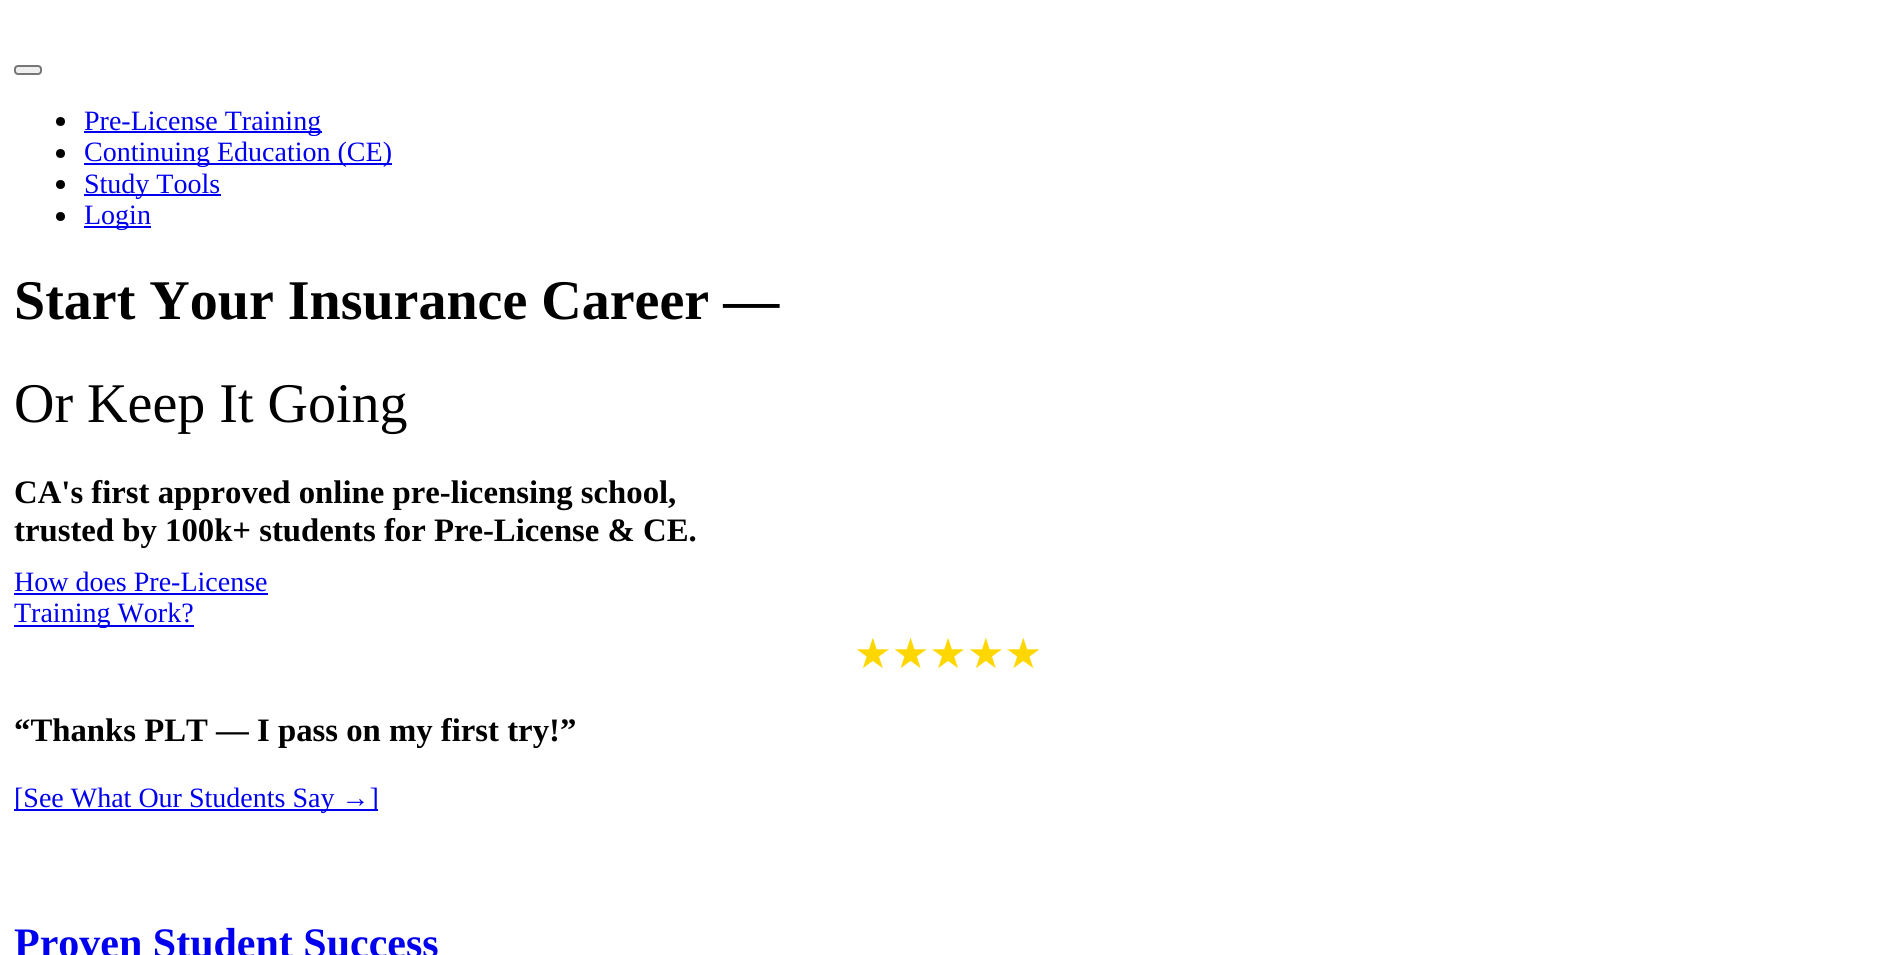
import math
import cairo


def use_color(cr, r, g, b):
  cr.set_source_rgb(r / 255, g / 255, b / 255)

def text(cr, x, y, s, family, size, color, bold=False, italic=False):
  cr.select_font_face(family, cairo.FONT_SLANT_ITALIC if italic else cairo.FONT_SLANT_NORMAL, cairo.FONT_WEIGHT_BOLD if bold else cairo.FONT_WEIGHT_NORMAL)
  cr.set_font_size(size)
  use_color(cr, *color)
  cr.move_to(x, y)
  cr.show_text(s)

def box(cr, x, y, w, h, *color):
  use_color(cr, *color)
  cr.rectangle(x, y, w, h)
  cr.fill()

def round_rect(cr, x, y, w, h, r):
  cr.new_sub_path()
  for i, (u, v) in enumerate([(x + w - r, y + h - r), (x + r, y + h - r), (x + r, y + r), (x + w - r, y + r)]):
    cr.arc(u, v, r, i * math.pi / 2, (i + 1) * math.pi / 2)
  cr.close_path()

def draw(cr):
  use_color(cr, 255, 255, 255)
  cr.paint()
  use_color(cr, 239, 239, 239)
  round_rect(cr, 15, 66, 26, 8, 3)
  cr.fill_preserve()
  use_color(cr, 118, 118, 118)
  cr.stroke()
  use_color(cr, 0, 0, 0)
  cr.arc(60.5, 121.5, 4.5, 0, 2 * math.pi)
  cr.fill()
  box(cr, 84, 131, 238, 2, 0, 0, 238)
  use_color(cr, 0, 0, 0)
  cr.arc(60.5, 153.5, 4.5, 0, 2 * math.pi)
  cr.fill()
  box(cr, 84, 163, 308, 2, 0, 0, 238)
  use_color(cr, 0, 0, 0)
  cr.arc(60.5, 184.5, 4.5, 0, 2 * math.pi)
  cr.fill()
  box(cr, 84, 194, 137, 2, 0, 0, 238)
  use_color(cr, 0, 0, 0)
  cr.arc(60.5, 216.5, 4.5, 0, 2 * math.pi)
  cr.fill()
  box(cr, 84, 226, 67, 2, 0, 0, 238)
  box(cr, 14, 593, 254, 2, 0, 0, 238)
  box(cr, 14, 625, 180, 2, 0, 0, 238)
  box(cr, 14, 809, 364, 2, 0, 0, 238)
  text(cr, 84, 130, "Pre-License Training", "Liberation Serif", 28, (0, 0, 238))
  text(cr, 84, 161, "Continuing Education (CE)", "Liberation Serif", 28, (0, 0, 238))
  text(cr, 84, 193, "Study Tools", "Liberation Serif", 28, (0, 0, 238))
  text(cr, 84, 224, "Login", "Liberation Serif", 28, (0, 0, 238))
  text(cr, 14, 319, "Start Your Insurance Career —", "Liberation Serif", 56, (0, 0, 0), bold=True)
  text(cr, 14, 422, "Or Keep It Going", "Liberation Serif", 56, (0, 0, 0))
  text(cr, 14, 503, "CA's first approved online pre-licensing school,", "Liberation Serif", 32.75, (0, 0, 0), bold=True)
  text(cr, 14, 541, "trusted by 100k+ students for Pre-License & CE.", "Liberation Serif", 32.75, (0, 0, 0), bold=True)
  text(cr, 14, 591, "How does Pre-License", "Liberation Serif", 28, (0, 0, 238))
  text(cr, 14, 622, "Training Work?", "Liberation Serif", 28, (0, 0, 238))
  text(cr, 854, 668, "★★★★★", "DejaVu Sans", 42, (255, 215, 0))
  text(cr, 14, 741, "“Thanks PLT — I pass on my first try!”", "Liberation Serif", 32.75, (0, 0, 0), bold=True)
  text(cr, 14, 807, "[See What Our Students Say →]", "Liberation Serif", 28, (0, 0, 238))
  text(cr, 14, 957, "Proven Student Success", "Liberation Serif", 42, (0, 0, 238), bold=True)


surface = cairo.ImageSurface(cairo.FORMAT_RGB24, 1896, 955)
cr = cairo.Context(surface)
options = cairo.FontOptions()
options.set_hint_metrics(cairo.HINT_METRICS_OFF)
options.set_hint_style(cairo.HINT_STYLE_NONE)
cr.set_font_options(options)
cr.set_miter_limit(4)
draw(cr)
surface.write_to_png("out.png")
